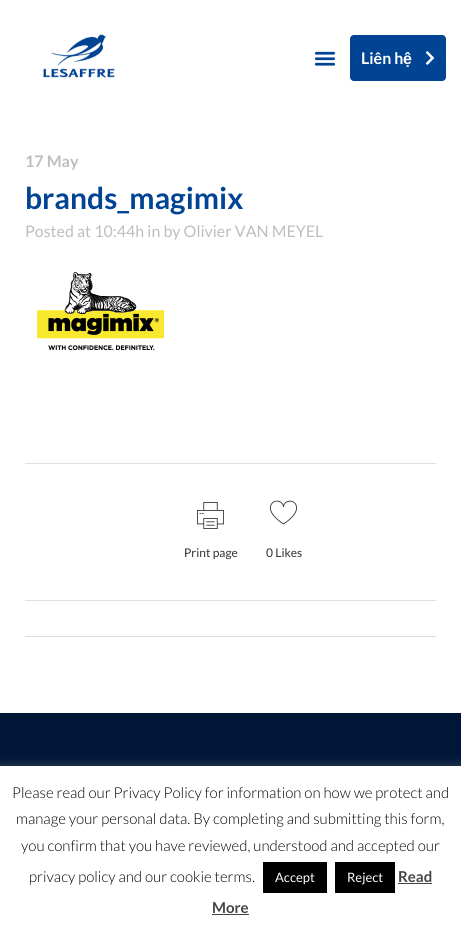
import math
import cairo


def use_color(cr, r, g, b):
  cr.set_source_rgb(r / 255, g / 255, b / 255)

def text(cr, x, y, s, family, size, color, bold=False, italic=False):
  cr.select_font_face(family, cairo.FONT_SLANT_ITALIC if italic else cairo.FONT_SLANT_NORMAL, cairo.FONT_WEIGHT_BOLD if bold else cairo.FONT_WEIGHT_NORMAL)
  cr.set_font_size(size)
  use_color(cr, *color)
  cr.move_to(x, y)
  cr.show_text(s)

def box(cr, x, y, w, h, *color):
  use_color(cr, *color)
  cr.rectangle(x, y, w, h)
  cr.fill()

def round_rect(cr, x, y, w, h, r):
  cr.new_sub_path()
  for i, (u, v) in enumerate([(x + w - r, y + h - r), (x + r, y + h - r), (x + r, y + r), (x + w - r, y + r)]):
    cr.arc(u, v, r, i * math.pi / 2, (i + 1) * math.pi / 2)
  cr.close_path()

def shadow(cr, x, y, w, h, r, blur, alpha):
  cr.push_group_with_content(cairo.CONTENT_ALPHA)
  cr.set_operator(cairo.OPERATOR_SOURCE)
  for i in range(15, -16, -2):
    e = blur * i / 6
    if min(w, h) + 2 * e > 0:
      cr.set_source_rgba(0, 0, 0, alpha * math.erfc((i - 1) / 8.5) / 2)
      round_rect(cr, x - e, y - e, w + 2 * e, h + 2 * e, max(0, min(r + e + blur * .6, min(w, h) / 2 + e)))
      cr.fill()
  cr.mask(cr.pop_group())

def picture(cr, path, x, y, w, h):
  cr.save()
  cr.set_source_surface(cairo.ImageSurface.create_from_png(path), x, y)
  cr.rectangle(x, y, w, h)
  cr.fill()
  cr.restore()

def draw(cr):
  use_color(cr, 255, 255, 255)
  cr.paint()
  picture(cr, "img_01.png", 43, 34, 72, 44)
  picture(cr, "img_02.png", 314, 51, 22, 15)
  use_color(cr, 1, 68, 147)
  round_rect(cr, 350.5, 35.5, 95, 45, 3.5)
  cr.fill_preserve()
  cr.set_line_width(1)
  cr.stroke()
  picture(cr, "img_03.png", 425, 51, 10, 14)
  picture(cr, "img_04.png", 37, 272, 127, 78)
  box(cr, 25, 463, 411, 1, 224, 224, 224)
  box(cr, 25, 600, 411, 1, 224, 224, 224)
  picture(cr, "img_05.png", 197, 502, 27, 27)
  picture(cr, "img_06.png", 270, 500, 27, 25)
  box(cr, 25, 636, 411, 1, 221, 221, 221)
  box(cr, 0, 713, 461, 53, 0, 22, 55)
  use_color(cr, 172, 171, 171)
  shadow(cr, 0, 765, 461, 165, 0, 5, 0.3)
  box(cr, 0, 766, 461, 165, 255, 255, 255)
  box(cr, 263, 862, 64, 31, 0, 0, 0)
  box(cr, 335, 862, 60, 31, 0, 0, 0)
  box(cr, 398, 883, 34, 1, 68, 68, 68)
  box(cr, 212, 914, 37, 1, 68, 68, 68)
  text(cr, 361, 64, "Liên h", "Lato", 16, (255, 255, 255), bold=True)
  text(cr, 403, 64, "ệ", "Liberation Sans", 16, (255, 255, 255), bold=True)
  text(cr, 25, 167, "17 May", "Lato", 16, (190, 190, 190), bold=True)
  text(cr, 25, 209, "brands_magimix", "Lato", 30, (1, 68, 147), bold=True)
  text(cr, 25, 237, "Posted at 10:44h in by Olivier VAN MEYEL", "Lato", 16, (190, 190, 190))
  text(cr, 184, 557, "Print page", "Lato", 12, (48, 48, 48))
  text(cr, 266, 557, "0 Likes", "Lato", 12, (48, 48, 48))
  text(cr, 12, 798, "Please read our Privacy Policy for information on how we protect and", "Lato Light", 15, (0, 0, 0))
  text(cr, 16, 824, "manage your personal data. By completing and submitting this form,", "Lato Light", 15, (0, 0, 0))
  text(cr, 21, 851, "you confirm that you have reviewed, understood and accepted our", "Lato Light", 15, (0, 0, 0))
  text(cr, 29, 882, "privacy policy and our cookie terms.", "Lato Light", 15, (0, 0, 0))
  text(cr, 275, 882, "Accept", "Lato", 13, (255, 255, 255))
  text(cr, 347, 882, "Reject", "Lato", 13, (255, 255, 255))
  text(cr, 398, 882, "Read", "Lato", 15, (68, 68, 68), bold=True)
  text(cr, 212, 913, "More", "Lato", 15, (68, 68, 68), bold=True)


surface = cairo.ImageSurface(cairo.FORMAT_RGB24, 461, 931)
cr = cairo.Context(surface)
options = cairo.FontOptions()
options.set_hint_metrics(cairo.HINT_METRICS_OFF)
options.set_hint_style(cairo.HINT_STYLE_NONE)
cr.set_font_options(options)
cr.set_miter_limit(4)
draw(cr)
surface.write_to_png("out.png")
